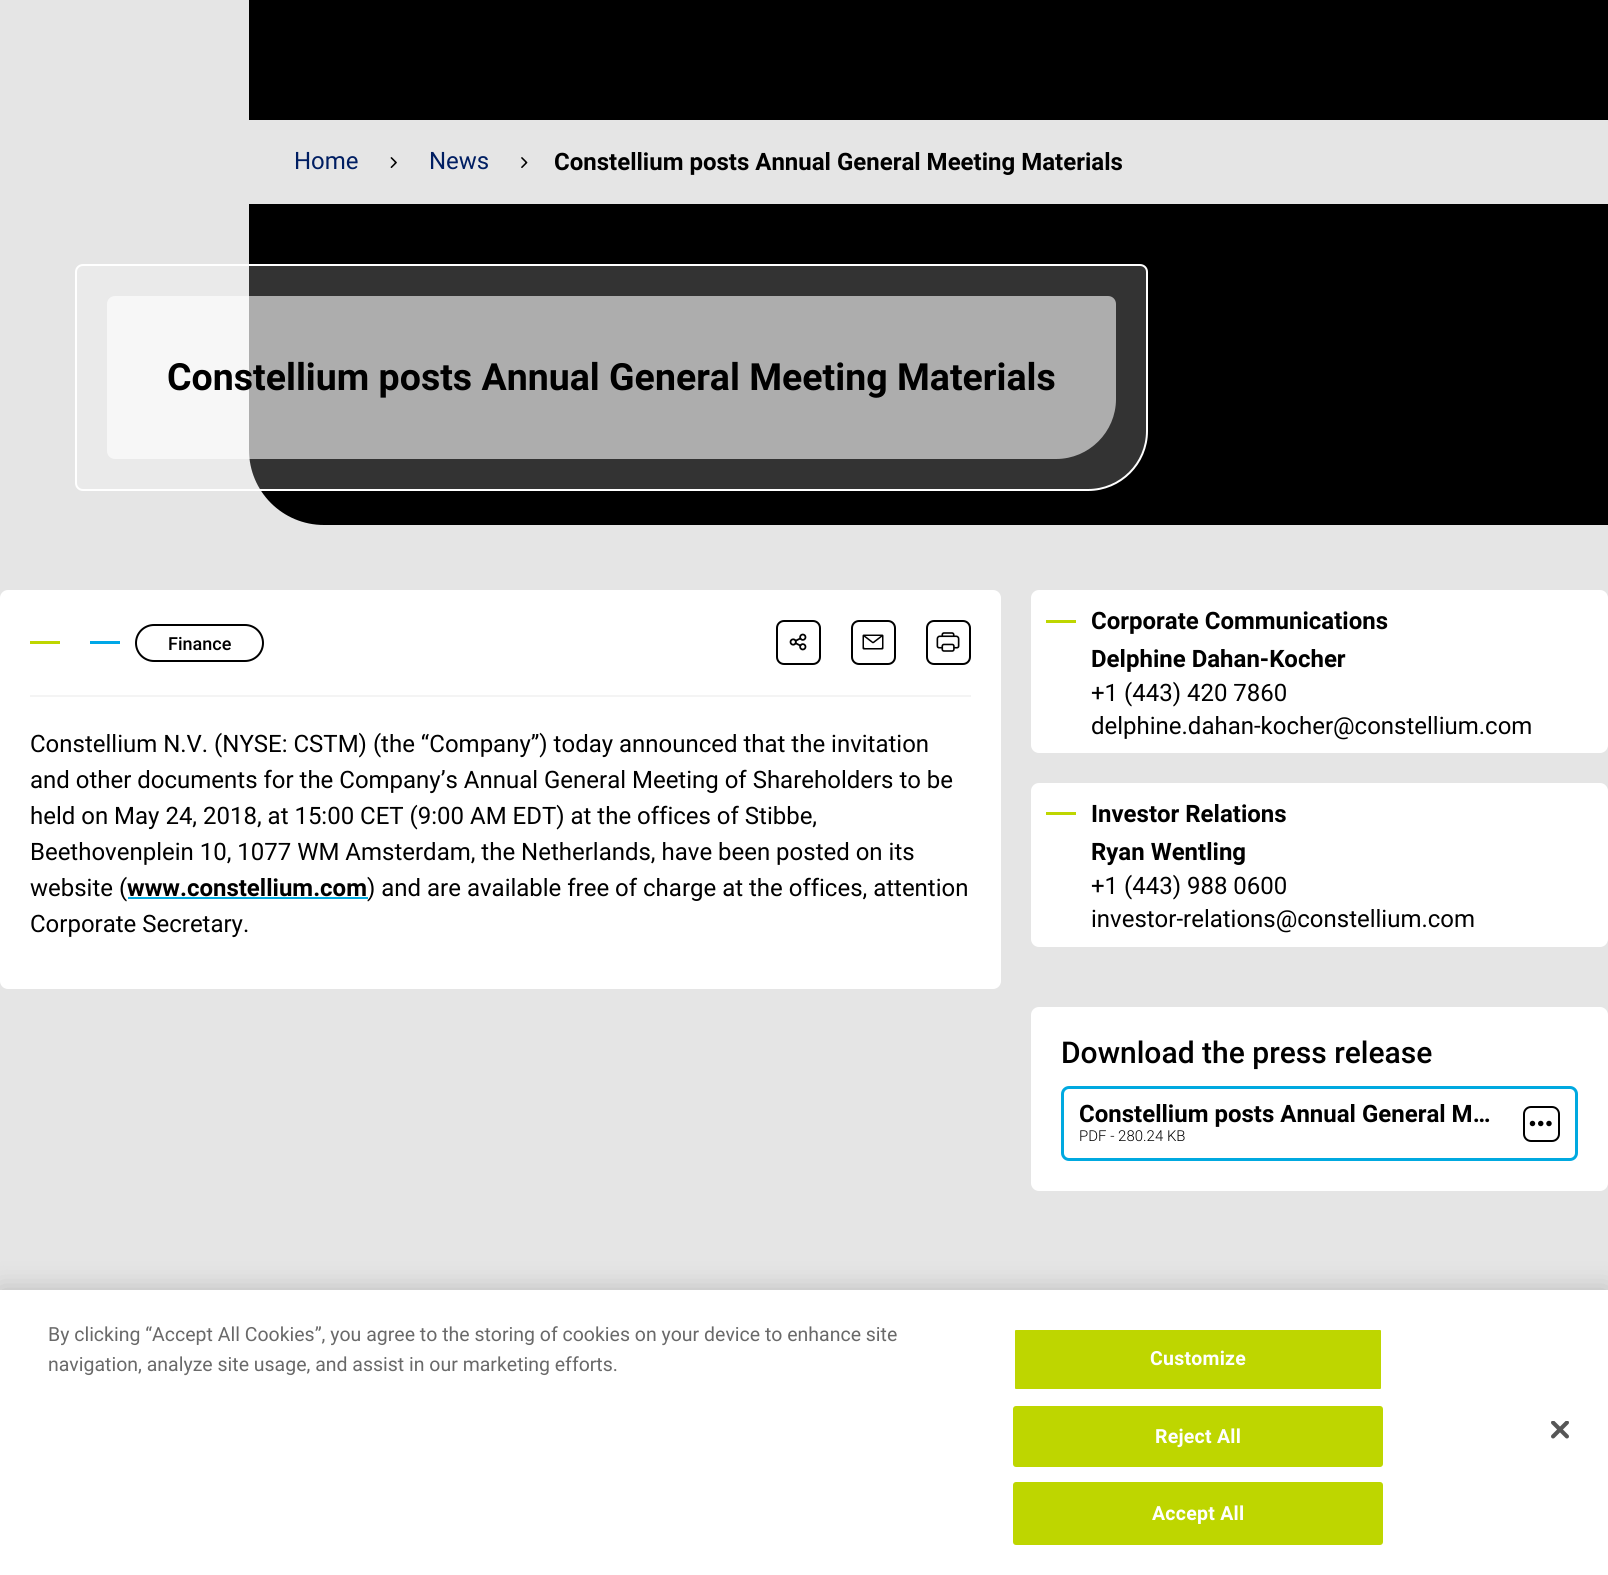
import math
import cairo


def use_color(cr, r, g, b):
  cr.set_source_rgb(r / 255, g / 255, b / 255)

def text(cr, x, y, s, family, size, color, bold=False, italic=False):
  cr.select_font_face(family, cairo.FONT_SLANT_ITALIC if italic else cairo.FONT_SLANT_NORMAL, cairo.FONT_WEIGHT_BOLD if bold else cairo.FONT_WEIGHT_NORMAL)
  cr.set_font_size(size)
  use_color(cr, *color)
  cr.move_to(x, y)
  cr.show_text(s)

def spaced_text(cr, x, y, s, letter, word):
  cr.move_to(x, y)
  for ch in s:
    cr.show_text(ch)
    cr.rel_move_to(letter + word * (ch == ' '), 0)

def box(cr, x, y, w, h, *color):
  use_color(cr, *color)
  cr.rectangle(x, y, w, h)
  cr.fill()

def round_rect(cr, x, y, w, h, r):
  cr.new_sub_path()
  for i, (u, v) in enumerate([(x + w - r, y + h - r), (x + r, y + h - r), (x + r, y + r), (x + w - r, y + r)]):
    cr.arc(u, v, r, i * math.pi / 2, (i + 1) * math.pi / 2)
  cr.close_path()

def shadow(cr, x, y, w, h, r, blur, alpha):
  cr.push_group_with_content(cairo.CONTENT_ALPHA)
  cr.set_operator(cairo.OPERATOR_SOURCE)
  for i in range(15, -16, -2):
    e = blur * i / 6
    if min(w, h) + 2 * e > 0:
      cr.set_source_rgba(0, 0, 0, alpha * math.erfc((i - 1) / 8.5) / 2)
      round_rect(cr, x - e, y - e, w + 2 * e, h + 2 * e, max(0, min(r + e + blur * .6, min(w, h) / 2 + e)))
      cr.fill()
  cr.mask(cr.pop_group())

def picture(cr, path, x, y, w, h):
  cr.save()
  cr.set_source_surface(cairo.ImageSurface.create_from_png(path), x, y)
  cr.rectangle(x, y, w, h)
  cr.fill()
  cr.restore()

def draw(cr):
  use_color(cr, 229, 229, 229)
  cr.paint()
  use_color(cr, 0, 0, 0)
  cr.new_path()
  cr.move_to(249, 0)
  cr.line_to(1608, 0)
  cr.line_to(1608, 525)
  cr.line_to(324, 525)
  cr.curve_to(282.5, 525, 249, 491.5, 249, 450)
  cr.close_path()
  cr.fill()
  box(cr, 249, 120, 1359, 84, 229, 229, 229)
  picture(cr, "img_01.png", 390, 157, 7, 11)
  picture(cr, "img_02.png", 521, 157, 7, 11)
  cr.set_source_rgba(1, 1, 1, 0.2)
  cr.new_path()
  cr.move_to(83, 265)
  cr.line_to(1140, 265)
  cr.curve_to(1144, 265, 1147, 268, 1147, 272)
  cr.line_to(1147, 431)
  cr.curve_to(1147, 463.5, 1120.5, 490, 1088, 490)
  cr.line_to(83, 490)
  cr.curve_to(79, 490, 76, 487, 76, 483)
  cr.line_to(76, 272)
  cr.curve_to(76, 268, 79, 265, 83, 265)
  cr.close_path()
  cr.fill_preserve()
  use_color(cr, 255, 255, 255)
  cr.stroke()
  cr.set_source_rgba(1, 1, 1, 0.6)
  cr.new_path()
  cr.move_to(115, 296)
  cr.line_to(1108, 296)
  cr.curve_to(1112.5, 296, 1116, 299.5, 1116, 304)
  cr.line_to(1116, 399)
  cr.curve_to(1116, 432, 1089, 459, 1056, 459)
  cr.line_to(115, 459)
  cr.curve_to(110.5, 459, 107, 455.5, 107, 451)
  cr.line_to(107, 304)
  cr.curve_to(107, 299.5, 110.5, 296, 115, 296)
  cr.close_path()
  cr.fill()
  use_color(cr, 255, 255, 255)
  round_rect(cr, 0, 590, 1001, 399, 8)
  cr.fill()
  box(cr, 30, 641, 30, 3, 190, 214, 0)
  box(cr, 90, 641, 30, 3, 0, 167, 231)
  round_rect(cr, 136, 625, 127, 36, 18)
  use_color(cr, 0, 0, 0)
  cr.stroke()
  round_rect(cr, 777, 621, 43, 43, 7)
  cr.stroke()
  picture(cr, "img_03.png", 789, 633, 18, 18)
  round_rect(cr, 852, 621, 43, 43, 7)
  cr.stroke()
  picture(cr, "img_04.png", 862, 634, 22, 16)
  round_rect(cr, 927, 621, 43, 43, 7)
  cr.stroke()
  picture(cr, "img_05.png", 936, 632, 24, 20)
  box(cr, 30, 695, 941, 2, 244, 244, 244)
  box(cr, 128, 897, 240, 2, 0, 169, 224)
  use_color(cr, 255, 255, 255)
  round_rect(cr, 1031, 590, 577, 163, 8)
  cr.fill()
  box(cr, 1046, 620, 30, 3, 190, 214, 0)
  use_color(cr, 255, 255, 255)
  round_rect(cr, 1031, 783, 577, 164, 8)
  cr.fill()
  box(cr, 1046, 812, 30, 3, 190, 214, 0)
  use_color(cr, 255, 255, 255)
  round_rect(cr, 1031, 1007, 577, 184, 8)
  cr.fill()
  round_rect(cr, 1062.5, 1087.5, 514, 72, 6.5)
  use_color(cr, 0, 169, 224)
  cr.set_line_width(3)
  cr.stroke()
  round_rect(cr, 1524, 1107, 35, 34, 7)
  use_color(cr, 0, 0, 0)
  cr.set_line_width(2)
  cr.stroke()
  picture(cr, "img_06.png", 1529, 1120, 23, 7)
  use_color(cr, 0, 0, 0)
  shadow(cr, 0, 1290, 1608, 285, 0, 13.5, 0.2)
  box(cr, 0, 1290, 1608, 285, 255, 255, 255)
  use_color(cr, 190, 214, 0)
  round_rect(cr, 1014, 1329, 368, 61, 2)
  cr.fill_preserve()
  use_color(cr, 255, 255, 255)
  cr.stroke()
  use_color(cr, 190, 214, 0)
  round_rect(cr, 1014, 1407, 368, 59, 2)
  cr.fill_preserve()
  cr.stroke()
  round_rect(cr, 1014, 1483, 368, 61, 2)
  cr.fill_preserve()
  cr.stroke()
  picture(cr, "img_07.png", 1551, 1421, 18, 18)
  text(cr, 294, 169, "Home", "Roboto", 24, (0, 30, 98))
  text(cr, 429, 169, "News", "Roboto", 24, (0, 30, 98))
  text(cr, 554, 170, "Constellium posts Annual General Meeting Materials", "Roboto", 24, (0, 0, 0), bold=True)
  text(cr, 167, 390, "Constellium posts Annual General Meeting Materials", "Roboto", 37.5, (0, 0, 0), bold=True)
  text(cr, 168, 650, "Finance", "Roboto Medium", 18, (0, 0, 0))
  text(cr, 30, 752, "Constellium N.V. (NYSE: CSTM) (the “Company”) today announced that the invitation", "Roboto", 24, (0, 0, 0))
  text(cr, 30, 788, "and other documents for the Company’s Annual General Meeting of Shareholders to be", "Roboto", 24, (0, 0, 0))
  text(cr, 30, 824, "held on May 24, 2018, at 15:00 CET (9:00 AM EDT) at the offices of Stibbe,", "Roboto", 24, (0, 0, 0))
  text(cr, 30, 860, "Beethovenplein 10, 1077 WM Amsterdam, the Netherlands, have been posted on its", "Roboto", 24, (0, 0, 0))
  text(cr, 30, 896, "website (", "Roboto", 24, (0, 0, 0))
  text(cr, 127, 896, "www.constellium.com", "Roboto", 24, (0, 0, 0), bold=True)
  text(cr, 367, 896, ") and are available free of charge at the offices, attention", "Roboto", 24, (0, 0, 0))
  text(cr, 30, 932, "Corporate Secretary.", "Roboto", 24, (0, 0, 0))
  text(cr, 1091, 629, "Corporate Communications", "Roboto", 24, (0, 0, 0), bold=True)
  text(cr, 1091, 667, "Delphine Dahan-Kocher", "Roboto", 24, (0, 0, 0), bold=True)
  text(cr, 1091, 701, "+1 (443) 420 7860", "Roboto", 24, (0, 0, 0))
  text(cr, 1091, 734, "delphine.dahan-kocher@constellium.com", "Roboto", 24, (0, 0, 0))
  text(cr, 1091, 822, "Investor Relations", "Roboto", 24, (0, 0, 0), bold=True)
  text(cr, 1091, 860, "Ryan Wentling", "Roboto", 24, (0, 0, 0), bold=True)
  text(cr, 1091, 894, "+1 (443) 988 0600", "Roboto", 24, (0, 0, 0))
  text(cr, 1091, 927, "investor-relations@constellium.com", "Roboto", 24, (0, 0, 0))
  text(cr, 1061, 1063, "Download the press release", "Roboto Medium", 30, (0, 0, 0))
  text(cr, 1079, 1122, "Constellium posts Annual General M…", "Roboto", 24, (0, 0, 0), bold=True)
  text(cr, 1079, 1141, "PDF - 280.24 KB", "Roboto Light", 15, (0, 0, 0))
  text(cr, 48, 1341, "By clicking “Accept All Cookies”, you agree to the storing of cookies on your device to enhance site", "Roboto", 19.5, (105, 105, 105))
  text(cr, 48, 1371, "navigation, analyze site usage, and assist in our marketing efforts.", "Roboto", 19.5, (105, 105, 105))
  cr.select_font_face("Roboto", cairo.FONT_SLANT_NORMAL, cairo.FONT_WEIGHT_BOLD)
  use_color(cr, 255, 255, 255)
  spaced_text(cr, 1150, 1365, "Customize", 0.25, 0)
  spaced_text(cr, 1155, 1443, "Reject All", 0.25, 0)
  spaced_text(cr, 1152, 1520, "Accept All", 0.25, 0)


surface = cairo.ImageSurface(cairo.FORMAT_RGB24, 1608, 1575)
cr = cairo.Context(surface)
options = cairo.FontOptions()
options.set_hint_metrics(cairo.HINT_METRICS_OFF)
options.set_hint_style(cairo.HINT_STYLE_NONE)
cr.set_font_options(options)
cr.set_miter_limit(4)
draw(cr)
surface.write_to_png("out.png")
